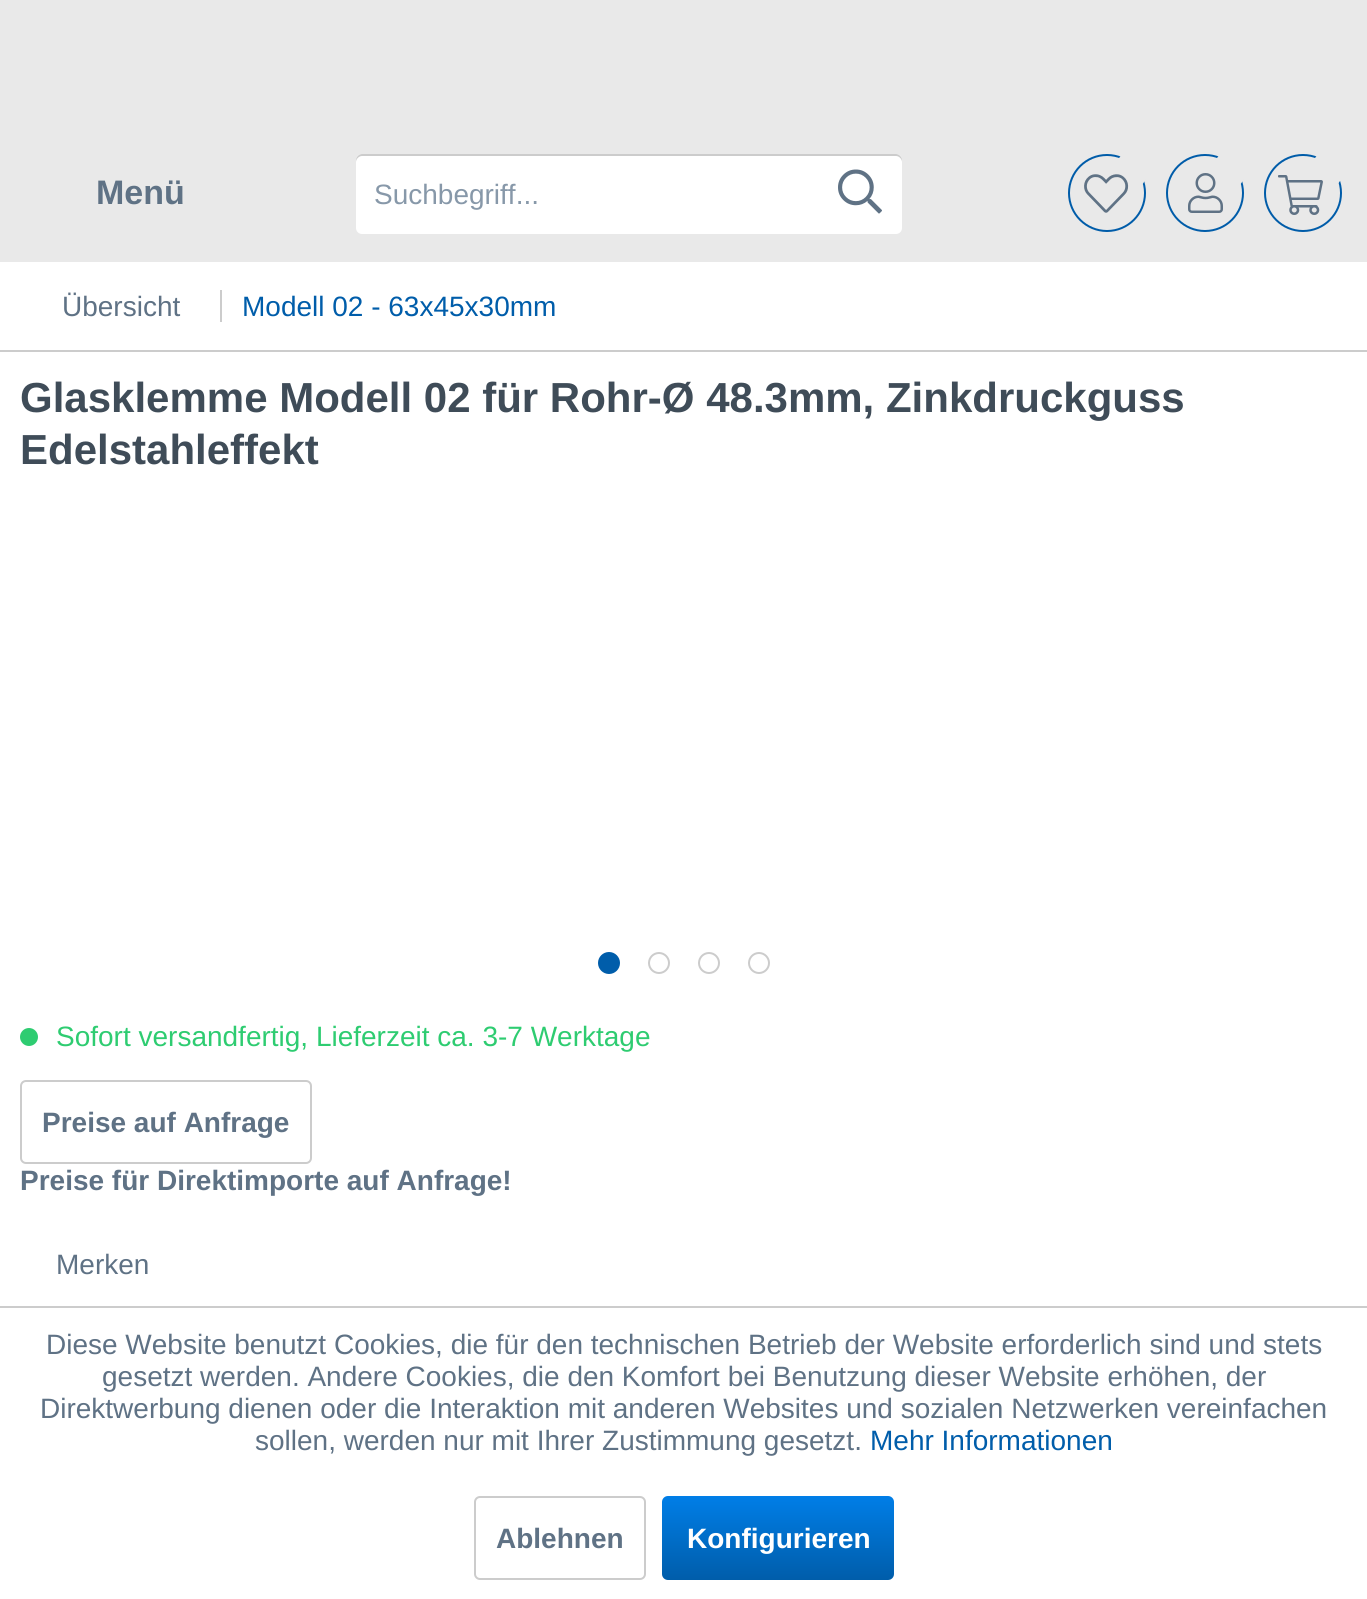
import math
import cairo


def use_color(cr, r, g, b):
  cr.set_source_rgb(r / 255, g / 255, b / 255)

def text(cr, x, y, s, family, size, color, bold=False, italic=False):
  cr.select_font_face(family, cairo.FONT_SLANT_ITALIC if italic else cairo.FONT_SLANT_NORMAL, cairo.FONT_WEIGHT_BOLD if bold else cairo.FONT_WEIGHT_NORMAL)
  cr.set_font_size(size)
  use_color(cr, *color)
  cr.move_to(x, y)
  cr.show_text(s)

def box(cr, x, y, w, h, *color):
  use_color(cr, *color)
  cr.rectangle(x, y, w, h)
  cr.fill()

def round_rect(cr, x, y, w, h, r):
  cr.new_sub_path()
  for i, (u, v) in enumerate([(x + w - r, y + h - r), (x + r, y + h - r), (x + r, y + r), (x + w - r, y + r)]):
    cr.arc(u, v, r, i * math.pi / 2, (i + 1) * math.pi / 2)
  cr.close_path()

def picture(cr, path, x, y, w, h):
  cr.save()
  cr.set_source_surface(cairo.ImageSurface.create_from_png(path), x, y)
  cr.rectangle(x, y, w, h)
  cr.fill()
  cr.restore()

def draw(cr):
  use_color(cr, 233, 233, 233)
  cr.paint()
  use_color(cr, 255, 255, 255)
  round_rect(cr, 356, 154, 546, 80, 6)
  cr.fill()
  use_color(cr, 204, 204, 204)
  cr.new_path()
  cr.move_to(362, 156)
  cr.line_to(896, 156)
  cr.curve_to(899, 156, 902, 159, 902, 162)
  cr.line_to(902, 160)
  cr.curve_to(902, 157, 899, 154, 896, 154)
  cr.line_to(362, 154)
  cr.curve_to(359, 154, 356, 157, 356, 160)
  cr.line_to(356, 162)
  cr.curve_to(356, 159, 359, 156, 362, 156)
  cr.close_path()
  cr.fill()
  picture(cr, "img_01.png", 838, 169, 44, 45)
  cr.arc(1107, 193, 38, 0, 2 * math.pi)
  use_color(cr, 0, 92, 169)
  cr.stroke()
  use_color(cr, 233, 233, 233)
  cr.new_path()
  cr.move_to(1122, 154)
  cr.line_to(1150, 174)
  cr.line_to(1119, 216)
  cr.line_to(1092, 196)
  cr.close_path()
  cr.fill()
  picture(cr, "img_02.png", 1084, 174, 45, 39)
  cr.arc(1205, 193, 38, 0, 2 * math.pi)
  use_color(cr, 0, 92, 169)
  cr.stroke()
  use_color(cr, 233, 233, 233)
  cr.new_path()
  cr.move_to(1220, 154)
  cr.line_to(1248, 174)
  cr.line_to(1217, 216)
  cr.line_to(1189, 196)
  cr.close_path()
  cr.fill()
  picture(cr, "img_03.png", 1188, 173, 35, 40)
  cr.arc(1303, 193, 38, 0, 2 * math.pi)
  use_color(cr, 0, 92, 169)
  cr.stroke()
  use_color(cr, 233, 233, 233)
  cr.new_path()
  cr.move_to(1318, 154)
  cr.line_to(1345, 174)
  cr.line_to(1315, 216)
  cr.line_to(1287, 196)
  cr.close_path()
  cr.fill()
  picture(cr, "img_04.png", 1278, 175, 45, 40)
  box(cr, 0, 262, 1367, 1044, 255, 255, 255)
  box(cr, 0, 350, 1367, 2, 204, 204, 204)
  box(cr, 220, 290, 2, 32, 204, 204, 204)
  use_color(cr, 0, 93, 170)
  cr.arc(609, 963, 10, 0, 2 * math.pi)
  cr.fill_preserve()
  cr.stroke()
  cr.arc(659, 963, 10, 0, 2 * math.pi)
  use_color(cr, 204, 204, 204)
  cr.stroke()
  cr.arc(709, 963, 10, 0, 2 * math.pi)
  cr.stroke()
  cr.arc(759, 963, 10, 0, 2 * math.pi)
  cr.stroke()
  use_color(cr, 46, 204, 113)
  cr.arc(29, 1037, 9, 0, 2 * math.pi)
  cr.fill()
  round_rect(cr, 21, 1081, 290, 82, 5)
  use_color(cr, 204, 204, 204)
  cr.stroke()
  box(cr, 0, 1308, 1367, 291, 255, 255, 255)
  box(cr, 0, 1306, 1367, 2, 204, 204, 204)
  round_rect(cr, 475, 1497, 170, 82, 5)
  cr.stroke()
  gradient = cairo.LinearGradient(778, 1496, 778, 1580)
  gradient.add_color_stop_rgba(0, 0, 0.494, 0.906, 1)
  gradient.add_color_stop_rgba(1, 0, 0.365, 0.667, 1)
  cr.set_source(gradient)
  round_rect(cr, 662, 1496, 232, 84, 6)
  cr.fill()
  text(cr, 96, 204, "Menü", "Liberation Sans", 34, (95, 114, 133), bold=True)
  text(cr, 374, 204, "Suchbegriff...", "Liberation Sans", 28, (135, 152, 169))
  text(cr, 62, 316, "Übersicht", "Liberation Sans", 28, (95, 114, 133))
  text(cr, 242, 316, "Modell 02 - 63x45x30mm", "Liberation Sans", 28, (0, 93, 170))
  text(cr, 20, 412, "Glasklemme Modell 02 für Rohr-Ø 48.3mm, Zinkdruckguss", "Liberation Sans", 42, (63, 76, 88), bold=True)
  text(cr, 20, 464, "Edelstahleffekt", "Liberation Sans", 42, (63, 76, 88), bold=True)
  text(cr, 56, 1046, "Sofort versandfertig, Lieferzeit ca. 3-7 Werktage", "Liberation Sans", 28, (46, 204, 113))
  text(cr, 42, 1132, "Preise auf Anfrage", "Liberation Sans", 28, (95, 114, 133), bold=True)
  text(cr, 20, 1190, "Preise für Direktimporte auf Anfrage!", "Liberation Sans", 28, (95, 114, 133), bold=True)
  text(cr, 56, 1274, "Merken", "Liberation Sans", 28, (95, 114, 133))
  text(cr, 46, 1354, "Diese Website benutzt Cookies, die für den technischen Betrieb der Website erforderlich sind und stets", "Liberation Sans", 28, (95, 114, 133))
  text(cr, 102, 1386, "gesetzt werden. Andere Cookies, die den Komfort bei Benutzung dieser Website erhöhen, der", "Liberation Sans", 28, (95, 114, 133))
  text(cr, 40, 1418, "Direktwerbung dienen oder die Interaktion mit anderen Websites und sozialen Netzwerken vereinfachen", "Liberation Sans", 28, (95, 114, 133))
  text(cr, 255, 1450, "sollen, werden nur mit Ihrer Zustimmung gesetzt.", "Liberation Sans", 28, (95, 114, 133))
  text(cr, 870, 1450, "Mehr Informationen", "Liberation Sans", 28, (0, 93, 170))
  text(cr, 496, 1548, "Ablehnen", "Liberation Sans", 28, (95, 114, 133), bold=True)
  text(cr, 687, 1548, "Konfigurieren", "Liberation Sans", 28, (255, 255, 255), bold=True)


surface = cairo.ImageSurface(cairo.FORMAT_RGB24, 1367, 1599)
cr = cairo.Context(surface)
options = cairo.FontOptions()
options.set_hint_metrics(cairo.HINT_METRICS_OFF)
options.set_hint_style(cairo.HINT_STYLE_NONE)
cr.set_font_options(options)
cr.set_miter_limit(4)
draw(cr)
surface.write_to_png("out.png")
